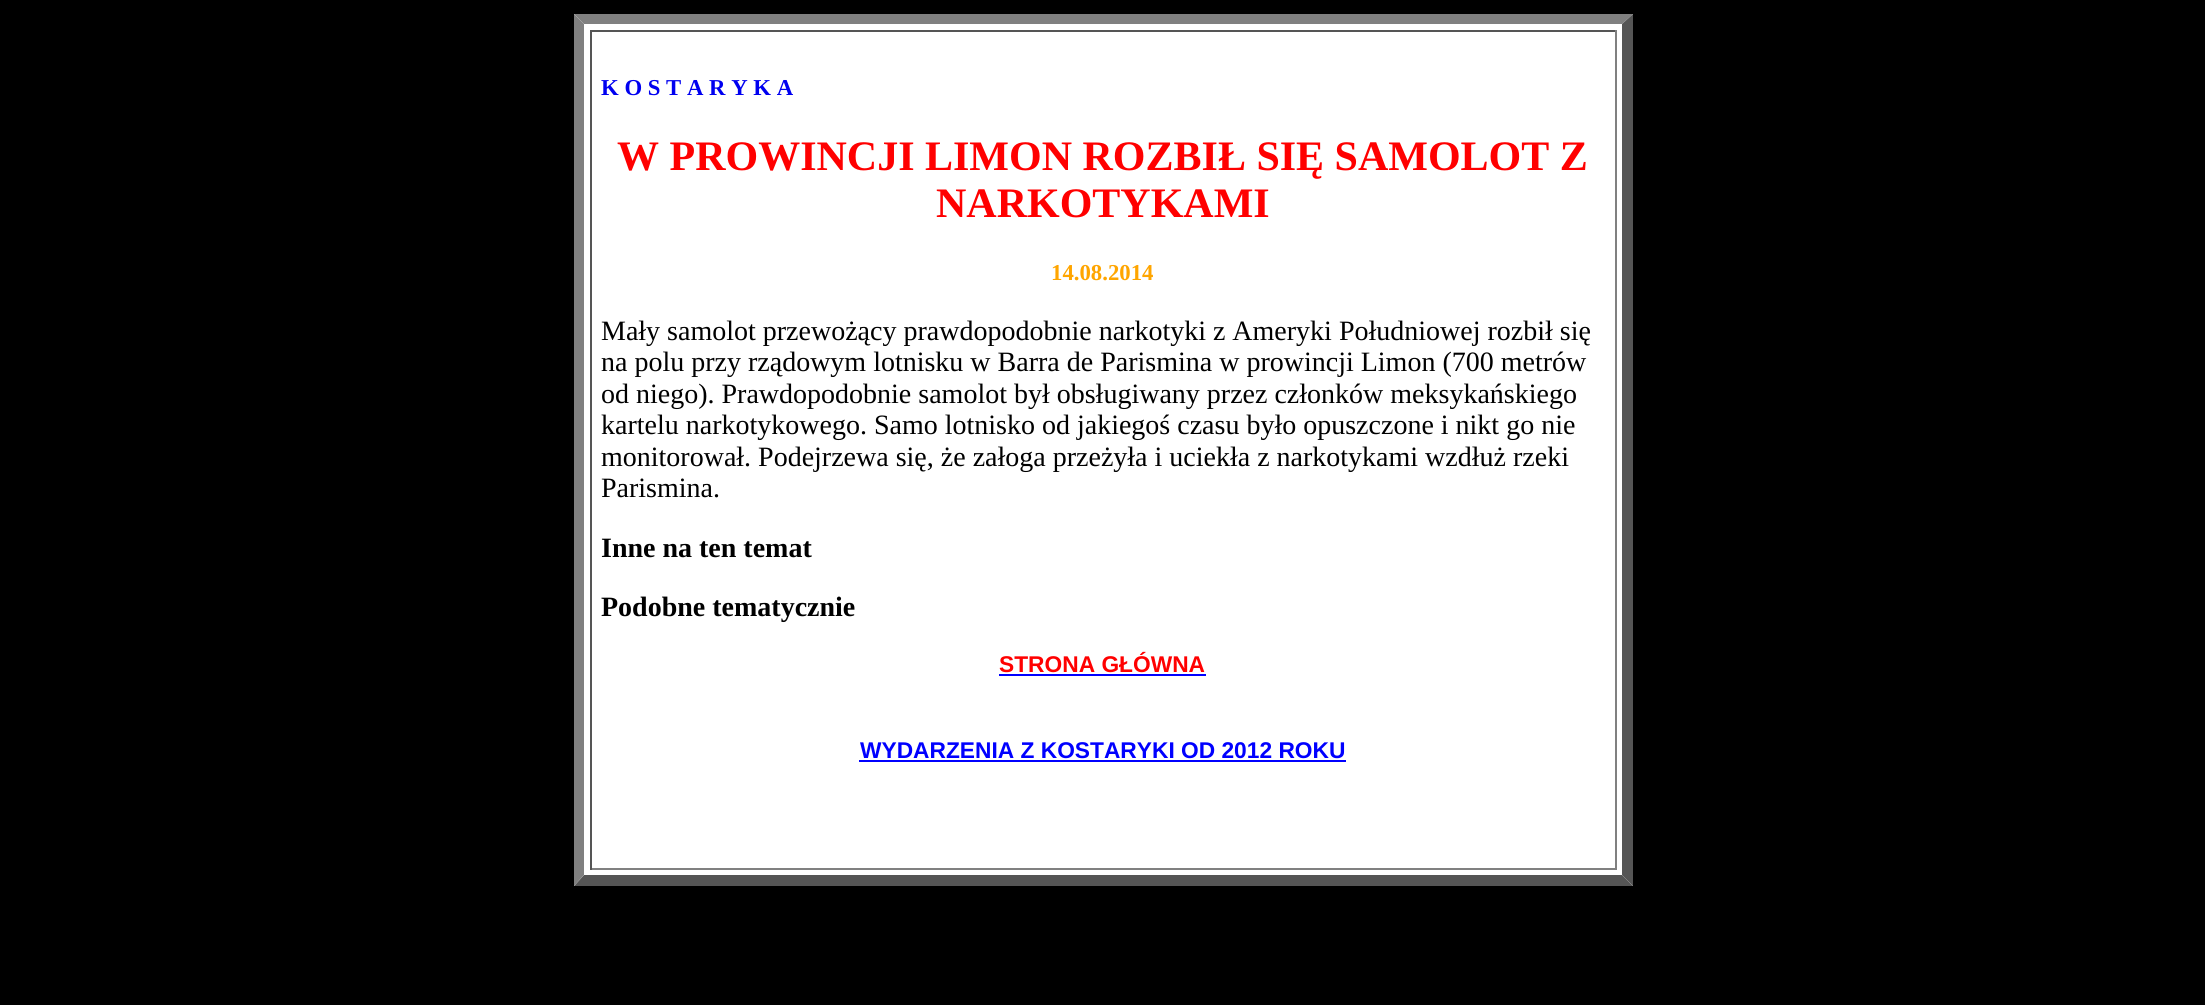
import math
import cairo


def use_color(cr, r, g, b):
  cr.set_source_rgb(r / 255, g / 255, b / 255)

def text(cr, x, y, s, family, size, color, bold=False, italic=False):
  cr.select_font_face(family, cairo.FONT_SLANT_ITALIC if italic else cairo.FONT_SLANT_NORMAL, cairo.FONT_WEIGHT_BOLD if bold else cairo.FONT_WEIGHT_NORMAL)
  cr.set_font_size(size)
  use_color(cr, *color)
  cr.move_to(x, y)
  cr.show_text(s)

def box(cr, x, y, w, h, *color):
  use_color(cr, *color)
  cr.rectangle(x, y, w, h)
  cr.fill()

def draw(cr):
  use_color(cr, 0, 0, 0)
  cr.paint()
  box(cr, 574, 14, 1059, 872, 255, 255, 255)
  use_color(cr, 128, 128, 128)
  cr.new_path()
  cr.move_to(574, 14)
  cr.line_to(1633, 14)
  cr.line_to(1622, 24)
  cr.line_to(584, 24)
  cr.close_path()
  cr.fill()
  use_color(cr, 85, 85, 85)
  cr.new_path()
  cr.move_to(1633, 14)
  cr.line_to(1633, 886)
  cr.line_to(1622, 875)
  cr.line_to(1622, 24)
  cr.close_path()
  cr.fill()
  cr.new_path()
  cr.move_to(1633, 886)
  cr.line_to(574, 886)
  cr.line_to(584, 875)
  cr.line_to(1622, 875)
  cr.close_path()
  cr.fill()
  use_color(cr, 128, 128, 128)
  cr.new_path()
  cr.move_to(574, 886)
  cr.line_to(574, 14)
  cr.line_to(584, 24)
  cr.line_to(584, 875)
  cr.close_path()
  cr.fill()
  box(cr, 590, 30, 1027, 2, 85, 85, 85)
  box(cr, 1615, 30, 2, 840, 128, 128, 128)
  box(cr, 590, 868, 1027, 2, 128, 128, 128)
  box(cr, 590, 30, 2, 840, 85, 85, 85)
  box(cr, 999, 674, 207, 2, 0, 0, 255)
  box(cr, 859, 760, 487, 2, 0, 0, 255)
  text(cr, 601, 95, "K O S T A R Y K A", "Liberation Serif", 22.75, (0, 0, 240), bold=True)
  text(cr, 617, 170, "W PROWINCJI LIMON ROZBIŁ SIĘ SAMOLOT Z", "Liberation Serif", 42, (255, 0, 0), bold=True)
  text(cr, 936, 217, "NARKOTYKAMI", "Liberation Serif", 42, (255, 0, 0), bold=True)
  text(cr, 1051, 280, "14.08.2014", "Liberation Serif", 22.75, (255, 165, 0), bold=True)
  text(cr, 601, 340, "Mały samolot przewożący prawdopodobnie narkotyki z Ameryki Południowej rozbił się", "Liberation Serif", 28, (0, 0, 0))
  text(cr, 601, 371, "na polu przy rządowym lotnisku w Barra de Parismina w prowincji Limon (700 metrów", "Liberation Serif", 28, (0, 0, 0))
  text(cr, 601, 403, "od niego). Prawdopodobnie samolot był obsługiwany przez członków meksykańskiego", "Liberation Serif", 28, (0, 0, 0))
  text(cr, 601, 434, "kartelu narkotykowego. Samo lotnisko od jakiegoś czasu było opuszczone i nikt go nie", "Liberation Serif", 28, (0, 0, 0))
  text(cr, 601, 466, "monitorował. Podejrzewa się, że załoga przeżyła i uciekła z narkotykami wzdłuż rzeki", "Liberation Serif", 28, (0, 0, 0))
  text(cr, 601, 497, "Parismina.", "Liberation Serif", 28, (0, 0, 0))
  text(cr, 601, 557, "Inne na ten temat", "Liberation Serif", 28, (0, 0, 0), bold=True)
  text(cr, 601, 616, "Podobne tematycznie", "Liberation Serif", 28, (0, 0, 0), bold=True)
  text(cr, 999, 672, "STRONA GŁÓWNA", "Liberation Sans", 22.75, (255, 0, 0), bold=True)
  text(cr, 860, 758, "WYDARZENIA Z KOSTARYKI OD 2012 ROKU", "Liberation Sans", 22.75, (0, 0, 255), bold=True)


surface = cairo.ImageSurface(cairo.FORMAT_RGB24, 2205, 1005)
cr = cairo.Context(surface)
options = cairo.FontOptions()
options.set_hint_metrics(cairo.HINT_METRICS_OFF)
options.set_hint_style(cairo.HINT_STYLE_NONE)
cr.set_font_options(options)
cr.set_miter_limit(4)
draw(cr)
surface.write_to_png("out.png")
